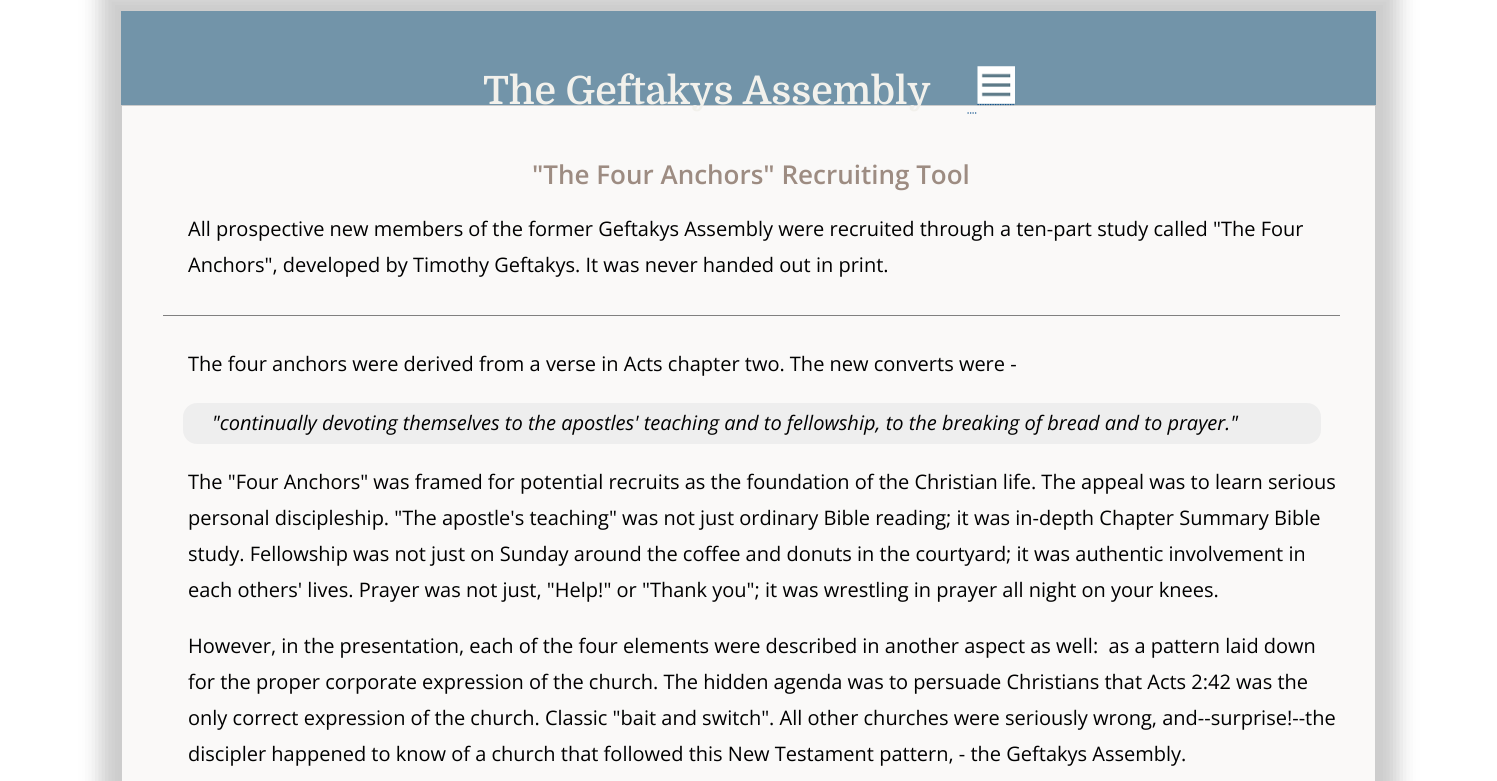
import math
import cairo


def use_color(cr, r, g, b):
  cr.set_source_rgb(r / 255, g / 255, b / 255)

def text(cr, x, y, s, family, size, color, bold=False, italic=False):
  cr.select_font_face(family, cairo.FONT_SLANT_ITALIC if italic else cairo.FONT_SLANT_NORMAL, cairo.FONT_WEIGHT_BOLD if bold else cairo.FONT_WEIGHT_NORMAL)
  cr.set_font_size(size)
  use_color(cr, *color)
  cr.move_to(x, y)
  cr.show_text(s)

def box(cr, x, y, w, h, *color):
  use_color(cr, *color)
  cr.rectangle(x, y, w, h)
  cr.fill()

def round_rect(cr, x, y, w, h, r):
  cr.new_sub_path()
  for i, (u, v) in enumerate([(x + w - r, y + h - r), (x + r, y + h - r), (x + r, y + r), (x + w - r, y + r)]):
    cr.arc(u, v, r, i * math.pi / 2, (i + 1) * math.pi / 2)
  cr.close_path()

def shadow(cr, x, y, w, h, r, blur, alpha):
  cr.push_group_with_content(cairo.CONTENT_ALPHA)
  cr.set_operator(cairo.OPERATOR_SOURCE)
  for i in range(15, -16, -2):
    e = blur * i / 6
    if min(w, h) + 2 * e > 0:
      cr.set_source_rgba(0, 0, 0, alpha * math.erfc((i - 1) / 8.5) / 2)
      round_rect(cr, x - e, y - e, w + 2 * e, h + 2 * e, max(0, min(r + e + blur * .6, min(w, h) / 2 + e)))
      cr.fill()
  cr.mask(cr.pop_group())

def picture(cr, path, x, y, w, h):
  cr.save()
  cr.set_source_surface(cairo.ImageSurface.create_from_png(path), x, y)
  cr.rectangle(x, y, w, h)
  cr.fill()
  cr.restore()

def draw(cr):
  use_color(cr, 255, 255, 255)
  cr.paint()
  use_color(cr, 204, 204, 204)
  shadow(cr, 100, -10, 1298, 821, 0, 10, 1)
  box(cr, 121, 11, 1255, 94, 114, 148, 169)
  box(cr, 122, 106, 1253, 675, 250, 249, 248)
  cr.new_path()
  cr.move_to(967.5, 113)
  cr.line_to(977.5, 113)
  cr.move_to(977.5, 104.5)
  cr.line_to(1015, 104.5)
  use_color(cr, 13, 79, 139)
  cr.set_line_width(1.2)
  cr.set_dash([1.25, 1.25])
  cr.stroke()
  picture(cr, "img_01.png", 977, 66, 38, 38)
  box(cr, 163, 315, 1177, 1, 128, 128, 128)
  use_color(cr, 238, 238, 238)
  round_rect(cr, 183, 403, 1138, 41, 14)
  cr.fill()
  text(cr, 483, 104, "The Geftakys Assembly", "Domine SemiBold", 39, (242, 241, 236))
  text(cr, 532, 184, "\"The Four Anchors\" Recruiting Tool", "Open Sans SemiBold", 26, (157, 140, 130))
  text(cr, 188, 236, "All prospective new members of the former Geftakys Assembly were recruited through a ten-part study called \"The Four", "Open Sans", 20, (0, 0, 0))
  text(cr, 188, 272, "Anchors\", developed by Timothy Geftakys. It was never handed out in print.", "Open Sans", 20, (0, 0, 0))
  text(cr, 188, 371, "The four anchors were derived from a verse in Acts chapter two. The new converts were -", "Open Sans", 20, (0, 0, 0))
  text(cr, 212, 430, "\"continually devoting themselves to the apostles' teaching and to fellowship, to the breaking of bread and to prayer.\"", "Open Sans", 20, (0, 0, 0), italic=True)
  text(cr, 188, 489, "The \"Four Anchors\" was framed for potential recruits as the foundation of the Christian life. The appeal was to learn serious", "Open Sans", 20, (0, 0, 0))
  text(cr, 188, 525, "personal discipleship. \"The apostle's teaching\" was not just ordinary Bible reading; it was in-depth Chapter Summary Bible", "Open Sans", 20, (0, 0, 0))
  text(cr, 188, 561, "study. Fellowship was not just on Sunday around the coffee and donuts in the courtyard; it was authentic involvement in", "Open Sans", 20, (0, 0, 0))
  text(cr, 188, 597, "each others' lives. Prayer was not just, \"Help!\" or \"Thank you\"; it was wrestling in prayer all night on your knees.", "Open Sans", 20, (0, 0, 0))
  text(cr, 188, 653, "However, in the presentation, each of the four elements were described in another aspect as well:  as a pattern laid down", "Open Sans", 20, (0, 0, 0))
  text(cr, 188, 689, "for the proper corporate expression of the church. The hidden agenda was to persuade Christians that Acts 2:42 was the", "Open Sans", 20, (0, 0, 0))
  text(cr, 188, 725, "only correct expression of the church. Classic \"bait and switch\". All other churches were seriously wrong, and--surprise!--the", "Open Sans", 20, (0, 0, 0))
  text(cr, 188, 761, "discipler happened to know of a church that followed this New Testament pattern, - the Geftakys Assembly.", "Open Sans", 20, (0, 0, 0))


surface = cairo.ImageSurface(cairo.FORMAT_RGB24, 1497, 781)
cr = cairo.Context(surface)
options = cairo.FontOptions()
options.set_hint_metrics(cairo.HINT_METRICS_OFF)
options.set_hint_style(cairo.HINT_STYLE_NONE)
cr.set_font_options(options)
cr.set_miter_limit(4)
draw(cr)
surface.write_to_png("out.png")
